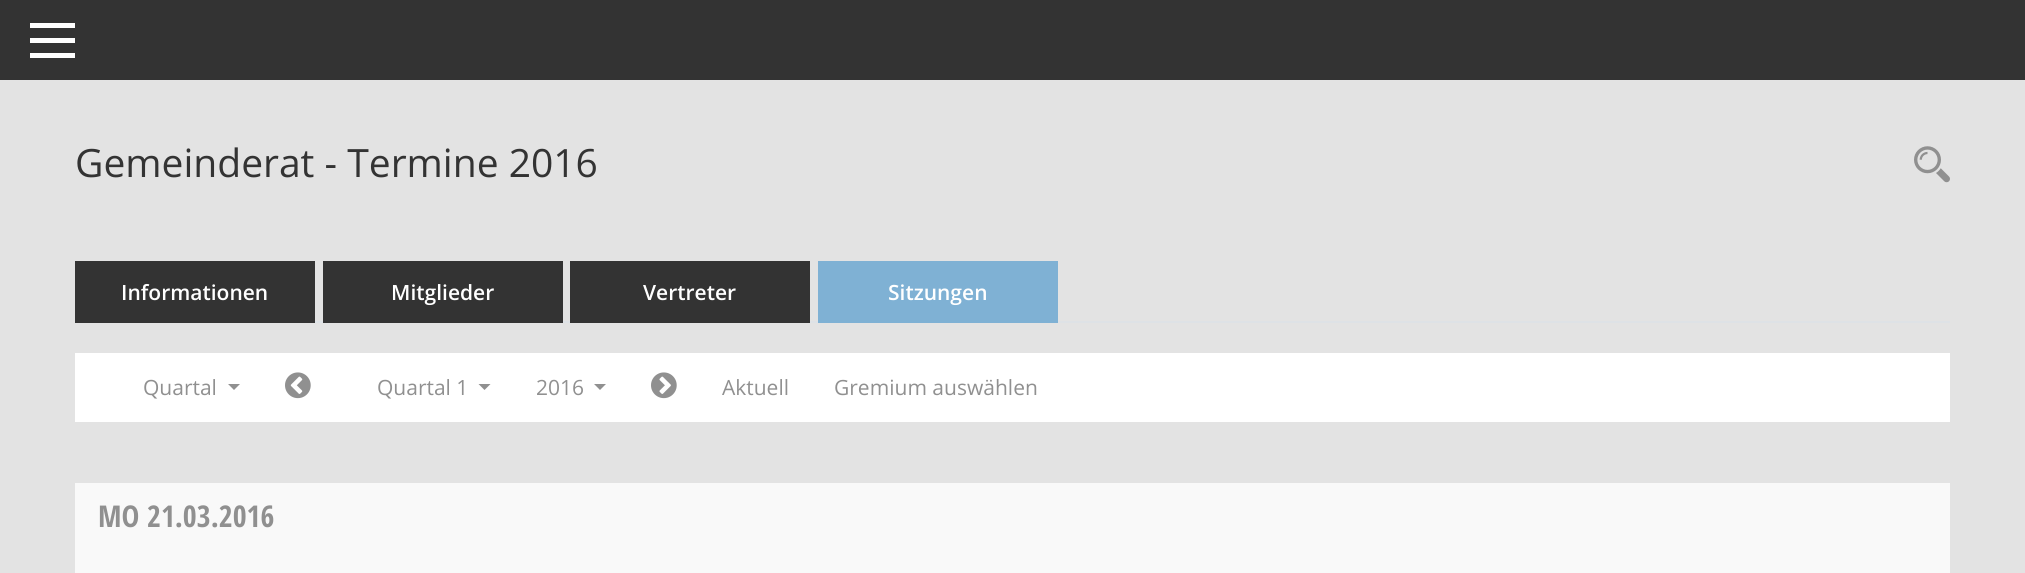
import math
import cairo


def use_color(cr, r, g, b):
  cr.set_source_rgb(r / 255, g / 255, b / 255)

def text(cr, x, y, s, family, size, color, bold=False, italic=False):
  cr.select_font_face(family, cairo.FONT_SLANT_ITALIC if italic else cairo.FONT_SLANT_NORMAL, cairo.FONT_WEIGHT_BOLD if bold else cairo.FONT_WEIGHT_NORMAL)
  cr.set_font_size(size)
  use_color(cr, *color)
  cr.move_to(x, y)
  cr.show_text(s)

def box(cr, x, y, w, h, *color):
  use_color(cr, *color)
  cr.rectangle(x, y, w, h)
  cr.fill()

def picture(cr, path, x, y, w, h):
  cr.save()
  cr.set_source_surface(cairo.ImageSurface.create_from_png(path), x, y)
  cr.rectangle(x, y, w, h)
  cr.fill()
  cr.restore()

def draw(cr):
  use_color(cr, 227, 227, 227)
  cr.paint()
  box(cr, 0, 0, 2025, 80, 51, 51, 51)
  box(cr, 30, 23, 45, 5, 255, 255, 255)
  box(cr, 30, 38, 45, 5, 255, 255, 255)
  box(cr, 30, 53, 45, 5, 255, 255, 255)
  picture(cr, "img_01.png", 1914, 146, 36, 37)
  box(cr, 315, 321, 1635, 2, 222, 226, 230)
  box(cr, 75, 261, 240, 62, 51, 51, 51)
  box(cr, 323, 261, 240, 62, 51, 51, 51)
  box(cr, 570, 261, 240, 62, 51, 51, 51)
  box(cr, 818, 261, 240, 62, 127, 177, 212)
  box(cr, 75, 353, 1875, 69, 255, 255, 255)
  use_color(cr, 144, 144, 144)
  cr.new_path()
  cr.move_to(228, 384)
  cr.line_to(240, 384)
  cr.line_to(234, 390)
  cr.close_path()
  cr.fill()
  picture(cr, "img_02.png", 285, 372, 26, 27)
  cr.new_path()
  cr.move_to(478.5, 384)
  cr.line_to(490.5, 384)
  cr.line_to(484.5, 390)
  cr.close_path()
  cr.fill()
  cr.new_path()
  cr.move_to(594, 384)
  cr.line_to(606, 384)
  cr.line_to(600, 390)
  cr.close_path()
  cr.fill()
  picture(cr, "img_03.png", 651, 372, 26, 27)
  box(cr, 75, 483, 1875, 90, 249, 249, 249)
  text(cr, 75, 177, "Gemeinderat - Termine 2016", "Open Sans", 39, (51, 51, 51))
  text(cr, 121, 300, "Informationen", "Open Sans SemiBold", 21, (255, 255, 255))
  text(cr, 391, 300, "Mitglieder", "Open Sans SemiBold", 21, (255, 255, 255))
  text(cr, 643, 300, "Vertreter", "Open Sans SemiBold", 21, (255, 255, 255))
  text(cr, 888, 300, "Sitzungen", "Open Sans SemiBold", 21, (255, 255, 255))
  text(cr, 143, 395, "Quartal", "Open Sans", 21, (144, 144, 144))
  text(cr, 377, 395, "Quartal 1", "Open Sans", 21, (144, 144, 144))
  text(cr, 536, 395, "2016", "Open Sans", 21, (144, 144, 144))
  text(cr, 722, 395, "Aktuell", "Open Sans", 21, (144, 144, 144))
  text(cr, 834, 395, "Gremium auswählen", "Open Sans", 21, (144, 144, 144))
  text(cr, 98, 527, "MO", "Open Sans Condensed", 30, (144, 144, 144), bold=True)
  text(cr, 147, 527, "21.03.2016", "Open Sans Condensed", 30, (144, 144, 144), bold=True)


surface = cairo.ImageSurface(cairo.FORMAT_RGB24, 2025, 573)
cr = cairo.Context(surface)
options = cairo.FontOptions()
options.set_hint_metrics(cairo.HINT_METRICS_OFF)
options.set_hint_style(cairo.HINT_STYLE_NONE)
cr.set_font_options(options)
cr.set_miter_limit(4)
draw(cr)
surface.write_to_png("out.png")
